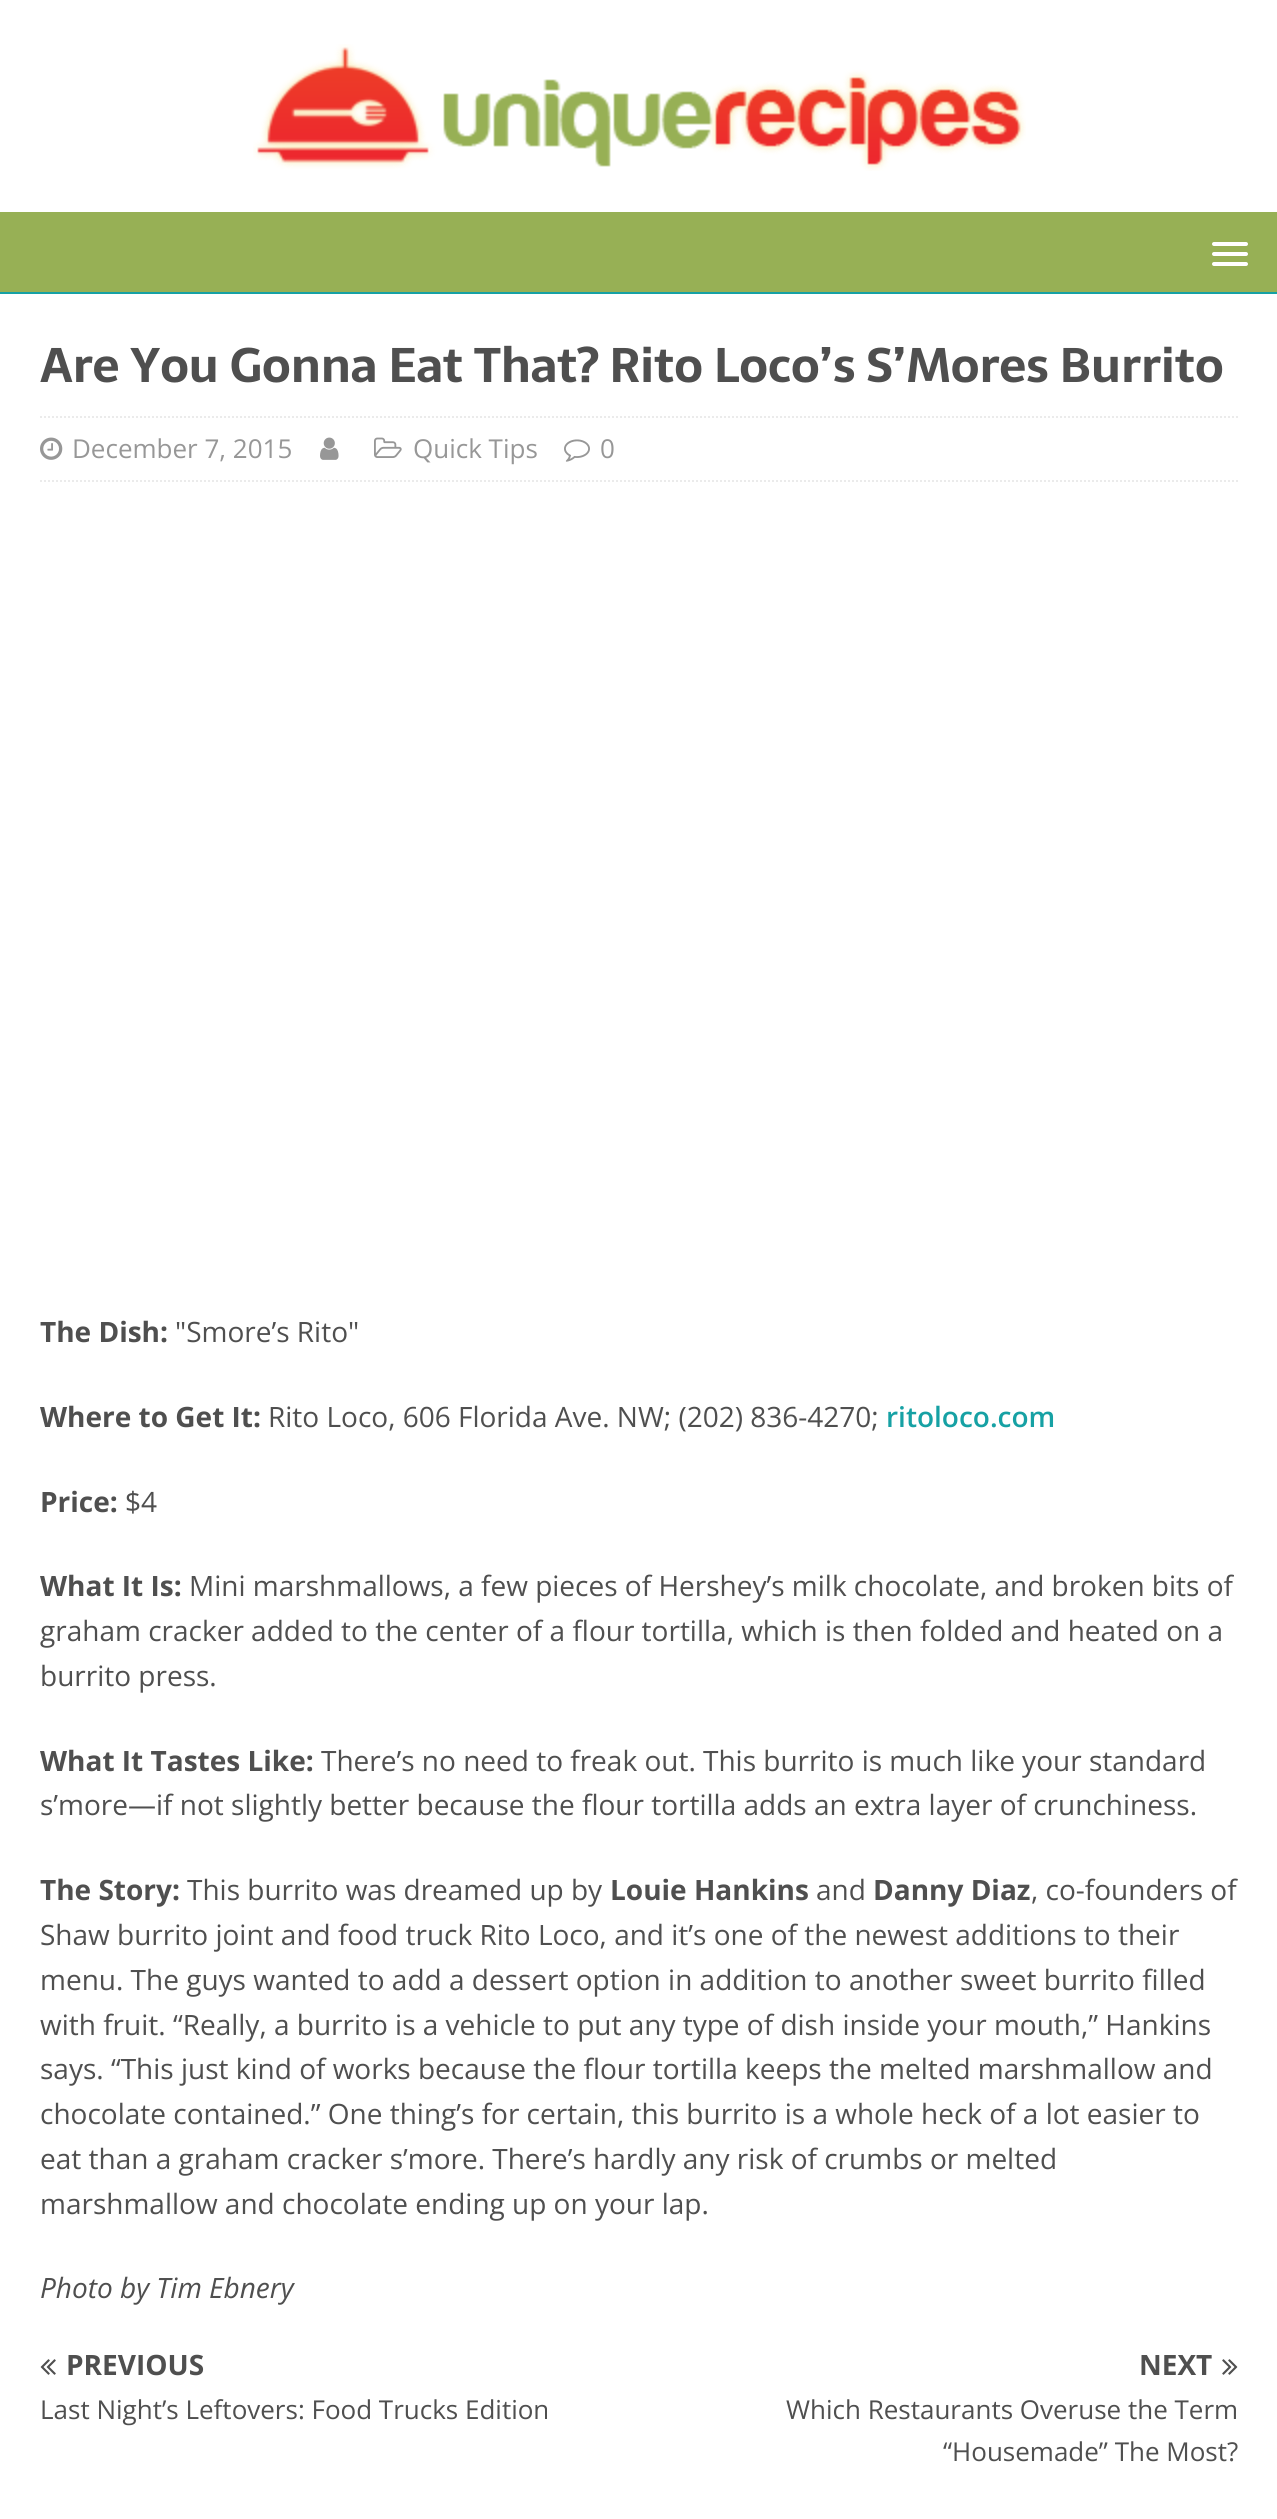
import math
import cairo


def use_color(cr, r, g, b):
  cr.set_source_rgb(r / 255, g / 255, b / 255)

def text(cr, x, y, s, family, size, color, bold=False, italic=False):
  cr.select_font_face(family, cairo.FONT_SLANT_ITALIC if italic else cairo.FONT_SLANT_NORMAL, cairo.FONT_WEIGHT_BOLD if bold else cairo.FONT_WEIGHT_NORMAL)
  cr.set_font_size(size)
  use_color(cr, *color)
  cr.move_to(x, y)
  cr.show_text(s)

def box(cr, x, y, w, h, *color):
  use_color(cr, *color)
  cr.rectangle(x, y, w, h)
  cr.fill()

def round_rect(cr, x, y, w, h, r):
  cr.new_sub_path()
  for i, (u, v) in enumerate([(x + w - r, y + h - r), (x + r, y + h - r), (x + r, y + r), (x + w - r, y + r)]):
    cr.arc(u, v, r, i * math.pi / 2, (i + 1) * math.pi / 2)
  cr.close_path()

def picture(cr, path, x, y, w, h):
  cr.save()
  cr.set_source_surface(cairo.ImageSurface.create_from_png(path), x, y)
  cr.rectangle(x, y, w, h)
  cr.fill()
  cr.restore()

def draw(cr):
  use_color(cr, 255, 255, 255)
  cr.paint()
  picture(cr, "img_01.png", 253, 44, 773, 127)
  box(cr, 0, 212, 1277, 80, 151, 176, 85)
  box(cr, 0, 292, 1277, 2, 22, 161, 164)
  use_color(cr, 255, 255, 255)
  round_rect(cr, 1212, 242, 36, 4, 2)
  cr.fill()
  round_rect(cr, 1212, 252, 36, 4, 2)
  cr.fill()
  round_rect(cr, 1212, 262, 36, 4, 2)
  cr.fill()
  cr.new_path()
  cr.move_to(40, 417)
  cr.line_to(1238, 417)
  use_color(cr, 235, 235, 235)
  cr.set_dash([2, 2])
  cr.stroke()
  cr.new_path()
  cr.move_to(40, 481)
  cr.line_to(1238, 481)
  cr.stroke()
  picture(cr, "img_02.png", 40, 437, 23, 23)
  picture(cr, "img_03.png", 320, 437, 19, 23)
  picture(cr, "img_04.png", 374, 437, 28, 21)
  picture(cr, "img_05.png", 564, 439, 26, 23)
  picture(cr, "img_06.png", 40, 2359, 16, 16)
  picture(cr, "img_07.png", 1222, 2359, 16, 16)
  text(cr, 40, 382, "Are You Gonna Eat That? Rito Loco’s S’Mores Burrito", "Sarala", 48, (79, 79, 79), bold=True)
  text(cr, 72, 458, "December 7, 2015", "Open Sans", 26, (151, 151, 151))
  text(cr, 413, 458, "Quick Tips", "Open Sans", 26, (151, 151, 151))
  text(cr, 600, 458, "0", "Open Sans", 26, (151, 151, 151))
  text(cr, 40, 1342, "The Dish:", "Open Sans", 28, (79, 79, 79), bold=True)
  text(cr, 175, 1342, "\"Smore’s Rito\"", "Open Sans", 28, (79, 79, 79))
  text(cr, 40, 1427, "Where to Get It:", "Open Sans", 28, (79, 79, 79), bold=True)
  text(cr, 268, 1427, "Rito Loco, 606 Florida Ave. NW; (202) 836-4270;", "Open Sans", 28, (79, 79, 79))
  text(cr, 886, 1427, "ritoloco.com", "Open Sans SemiBold", 28, (22, 161, 164))
  text(cr, 40, 1512, "Price:", "Open Sans", 28, (79, 79, 79), bold=True)
  text(cr, 125, 1512, "$4", "Open Sans", 28, (79, 79, 79))
  text(cr, 40, 1596, "What It Is:", "Open Sans", 28, (79, 79, 79), bold=True)
  text(cr, 189, 1596, "Mini marshmallows, a few pieces of Hershey’s milk chocolate, and broken bits of", "Open Sans", 28, (79, 79, 79))
  text(cr, 40, 1641, "graham cracker added to the center of a flour tortilla, which is then folded and heated on a", "Open Sans", 28, (79, 79, 79))
  text(cr, 40, 1686, "burrito press.", "Open Sans", 28, (79, 79, 79))
  text(cr, 40, 1771, "What It Tastes Like:", "Open Sans", 28, (79, 79, 79), bold=True)
  text(cr, 321, 1771, "There’s no need to freak out. This burrito is much like your standard", "Open Sans", 28, (79, 79, 79))
  text(cr, 40, 1815, "s’more—if not slightly better because the flour tortilla adds an extra layer of crunchiness.", "Open Sans", 28, (79, 79, 79))
  text(cr, 40, 1900, "The Story:", "Open Sans", 28, (79, 79, 79), bold=True)
  text(cr, 187, 1900, "This burrito was dreamed up by", "Open Sans", 28, (79, 79, 79))
  text(cr, 610, 1900, "Louie Hankins", "Open Sans", 28, (79, 79, 79), bold=True)
  text(cr, 816, 1900, "and", "Open Sans", 28, (79, 79, 79))
  text(cr, 873, 1900, "Danny Diaz", "Open Sans", 28, (79, 79, 79), bold=True)
  text(cr, 1031, 1900, ", co-founders of", "Open Sans", 28, (79, 79, 79))
  text(cr, 40, 1945, "Shaw burrito joint and food truck Rito Loco, and it’s one of the newest additions to their", "Open Sans", 28, (79, 79, 79))
  text(cr, 40, 1990, "menu. The guys wanted to add a dessert option in addition to another sweet burrito filled", "Open Sans", 28, (79, 79, 79))
  text(cr, 40, 2035, "with fruit. “Really, a burrito is a vehicle to put any type of dish inside your mouth,” Hankins", "Open Sans", 28, (79, 79, 79))
  text(cr, 40, 2079, "says. “This just kind of works because the flour tortilla keeps the melted marshmallow and", "Open Sans", 28, (79, 79, 79))
  text(cr, 40, 2124, "chocolate contained.” One thing’s for certain, this burrito is a whole heck of a lot easier to", "Open Sans", 28, (79, 79, 79))
  text(cr, 40, 2169, "eat than a graham cracker s’more. There’s hardly any risk of crumbs or melted", "Open Sans", 28, (79, 79, 79))
  text(cr, 40, 2214, "marshmallow and chocolate ending up on your lap.", "Open Sans", 28, (79, 79, 79))
  text(cr, 40, 2298, "Photo by Tim Ebnery", "Open Sans", 28, (79, 79, 79), italic=True)
  text(cr, 66, 2375, "PREVIOUS", "Open Sans", 28, (79, 79, 79), bold=True)
  text(cr, 40, 2419, "Last Night’s Leftovers: Food Trucks Edition", "Open Sans", 26, (79, 79, 79))
  text(cr, 1139, 2375, "NEXT", "Open Sans", 28, (79, 79, 79), bold=True)
  text(cr, 786, 2419, "Which Restaurants Overuse the Term", "Open Sans", 26, (79, 79, 79))
  text(cr, 943, 2461, "“Housemade” The Most?", "Open Sans", 26, (79, 79, 79))


surface = cairo.ImageSurface(cairo.FORMAT_RGB24, 1277, 2519)
cr = cairo.Context(surface)
options = cairo.FontOptions()
options.set_hint_metrics(cairo.HINT_METRICS_OFF)
options.set_hint_style(cairo.HINT_STYLE_NONE)
cr.set_font_options(options)
cr.set_miter_limit(4)
draw(cr)
surface.write_to_png("out.png")
